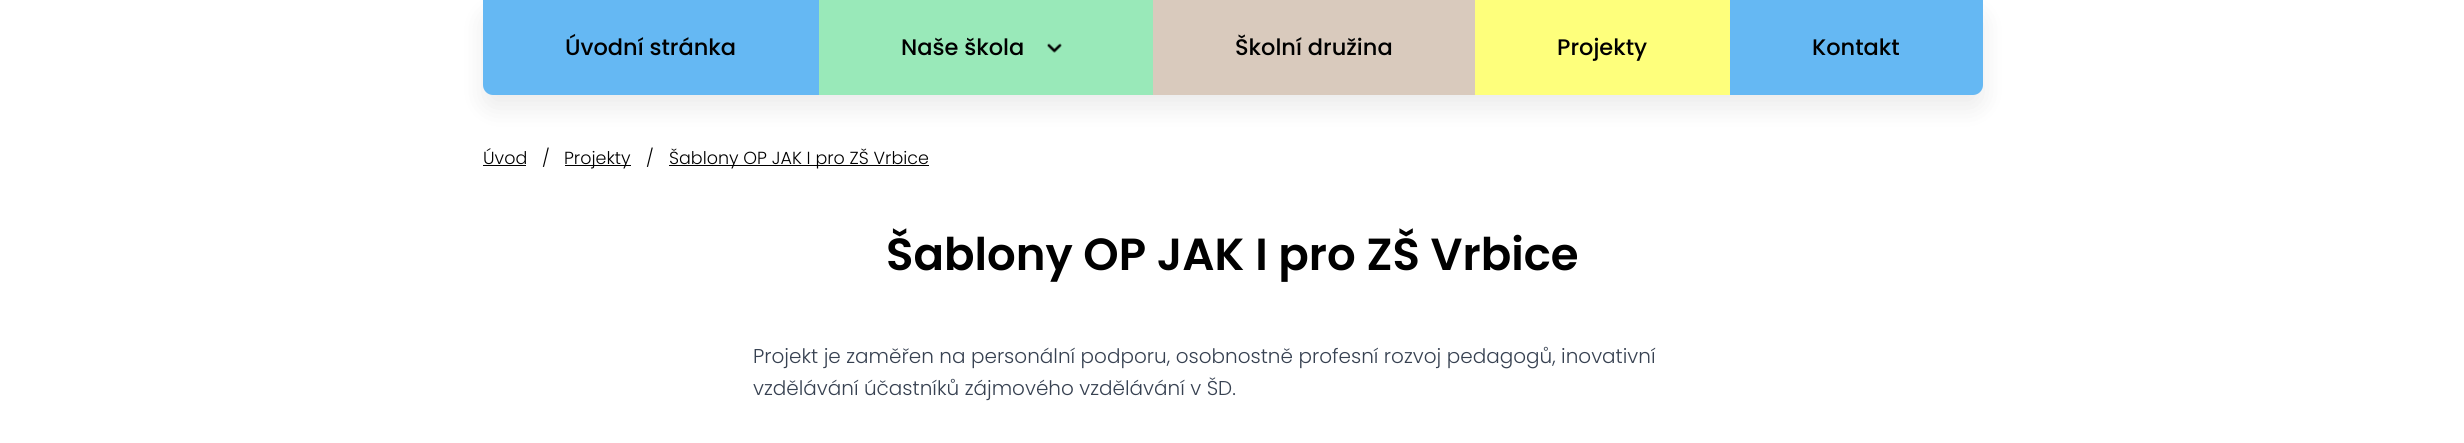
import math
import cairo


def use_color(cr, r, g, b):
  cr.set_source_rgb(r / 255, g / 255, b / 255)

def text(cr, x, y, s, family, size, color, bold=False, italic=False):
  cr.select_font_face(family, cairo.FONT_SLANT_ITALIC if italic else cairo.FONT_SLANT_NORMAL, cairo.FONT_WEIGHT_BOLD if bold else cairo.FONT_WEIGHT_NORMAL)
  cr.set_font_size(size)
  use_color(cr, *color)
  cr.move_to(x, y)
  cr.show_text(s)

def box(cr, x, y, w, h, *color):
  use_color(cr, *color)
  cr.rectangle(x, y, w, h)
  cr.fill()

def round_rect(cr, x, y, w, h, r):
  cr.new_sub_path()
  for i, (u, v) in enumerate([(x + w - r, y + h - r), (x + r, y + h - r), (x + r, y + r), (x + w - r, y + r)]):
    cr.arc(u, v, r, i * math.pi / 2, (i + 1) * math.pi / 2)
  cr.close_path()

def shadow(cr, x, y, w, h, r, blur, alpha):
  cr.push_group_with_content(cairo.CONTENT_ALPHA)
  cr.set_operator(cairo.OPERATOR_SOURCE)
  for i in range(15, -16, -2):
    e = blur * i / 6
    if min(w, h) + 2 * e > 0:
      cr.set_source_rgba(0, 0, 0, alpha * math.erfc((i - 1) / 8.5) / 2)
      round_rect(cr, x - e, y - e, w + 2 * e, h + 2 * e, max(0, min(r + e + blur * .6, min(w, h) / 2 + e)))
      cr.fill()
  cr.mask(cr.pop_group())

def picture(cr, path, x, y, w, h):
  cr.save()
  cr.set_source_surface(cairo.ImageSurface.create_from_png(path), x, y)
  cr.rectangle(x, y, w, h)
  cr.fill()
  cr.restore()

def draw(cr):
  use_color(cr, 255, 255, 255)
  cr.paint()
  use_color(cr, 0, 0, 0)
  shadow(cr, 483, 13, 1500, 95, 10, 12.5, 0.08)
  use_color(cr, 101, 184, 243)
  cr.new_path()
  cr.move_to(483, 0)
  cr.line_to(819, 0)
  cr.line_to(819, 95)
  cr.line_to(493, 95)
  cr.curve_to(487.5, 95, 483, 90.5, 483, 85)
  cr.close_path()
  cr.fill()
  box(cr, 819, 0, 334, 95, 153, 233, 185)
  picture(cr, "img_01.png", 1047, 43, 15, 10)
  box(cr, 1153, 0, 322, 95, 217, 202, 189)
  box(cr, 1475, 0, 255, 95, 254, 255, 124)
  use_color(cr, 101, 184, 243)
  cr.new_path()
  cr.move_to(1730, 0)
  cr.line_to(1983, 0)
  cr.line_to(1983, 85)
  cr.curve_to(1983, 90.5, 1978.5, 95, 1973, 95)
  cr.line_to(1730, 95)
  cr.close_path()
  cr.fill()
  box(cr, 483, 165, 43, 1, 0, 0, 0)
  box(cr, 565, 165, 66, 1, 0, 0, 0)
  box(cr, 669, 165, 260, 1, 0, 0, 0)
  text(cr, 565, 55, "Úvodní stránka", "Poppins Medium", 22.5, (0, 0, 0))
  text(cr, 901, 55, "Naše škola", "Poppins Medium", 22.5, (0, 0, 0))
  text(cr, 1235, 55, "Školní družina", "Poppins Medium", 22.5, (0, 0, 0))
  text(cr, 1557, 55, "Projekty", "Poppins Medium", 22.5, (0, 0, 0))
  text(cr, 1812, 55, "Kontakt", "Poppins Medium", 22.5, (0, 0, 0))
  text(cr, 483, 164, "Úvod", "Poppins Light", 17.5, (0, 0, 0))
  text(cr, 542, 164, "/", "Poppins Light", 17.5, (0, 0, 0))
  text(cr, 564, 164, "Projekty", "Poppins Light", 17.5, (0, 0, 0))
  text(cr, 646, 164, "/", "Poppins Light", 17.5, (0, 0, 0))
  text(cr, 669, 164, "Šablony OP JAK I pro ZŠ Vrbice", "Poppins Light", 17.5, (0, 0, 0))
  text(cr, 886, 270, "Šablony OP JAK I pro ZŠ Vrbice", "Poppins SemiBold", 45, (0, 0, 0))
  text(cr, 753, 363, "Projekt je zaměřen na personální podporu, osobnostně profesní rozvoj pedagogů, inovativní", "Poppins Light", 20, (55, 65, 81))
  text(cr, 753, 395, "vzdělávání účastníků zájmového vzdělávání v ŠD.", "Poppins Light", 20, (55, 65, 81))


surface = cairo.ImageSurface(cairo.FORMAT_RGB24, 2464, 443)
cr = cairo.Context(surface)
options = cairo.FontOptions()
options.set_hint_metrics(cairo.HINT_METRICS_OFF)
options.set_hint_style(cairo.HINT_STYLE_NONE)
cr.set_font_options(options)
cr.set_miter_limit(4)
draw(cr)
surface.write_to_png("out.png")
